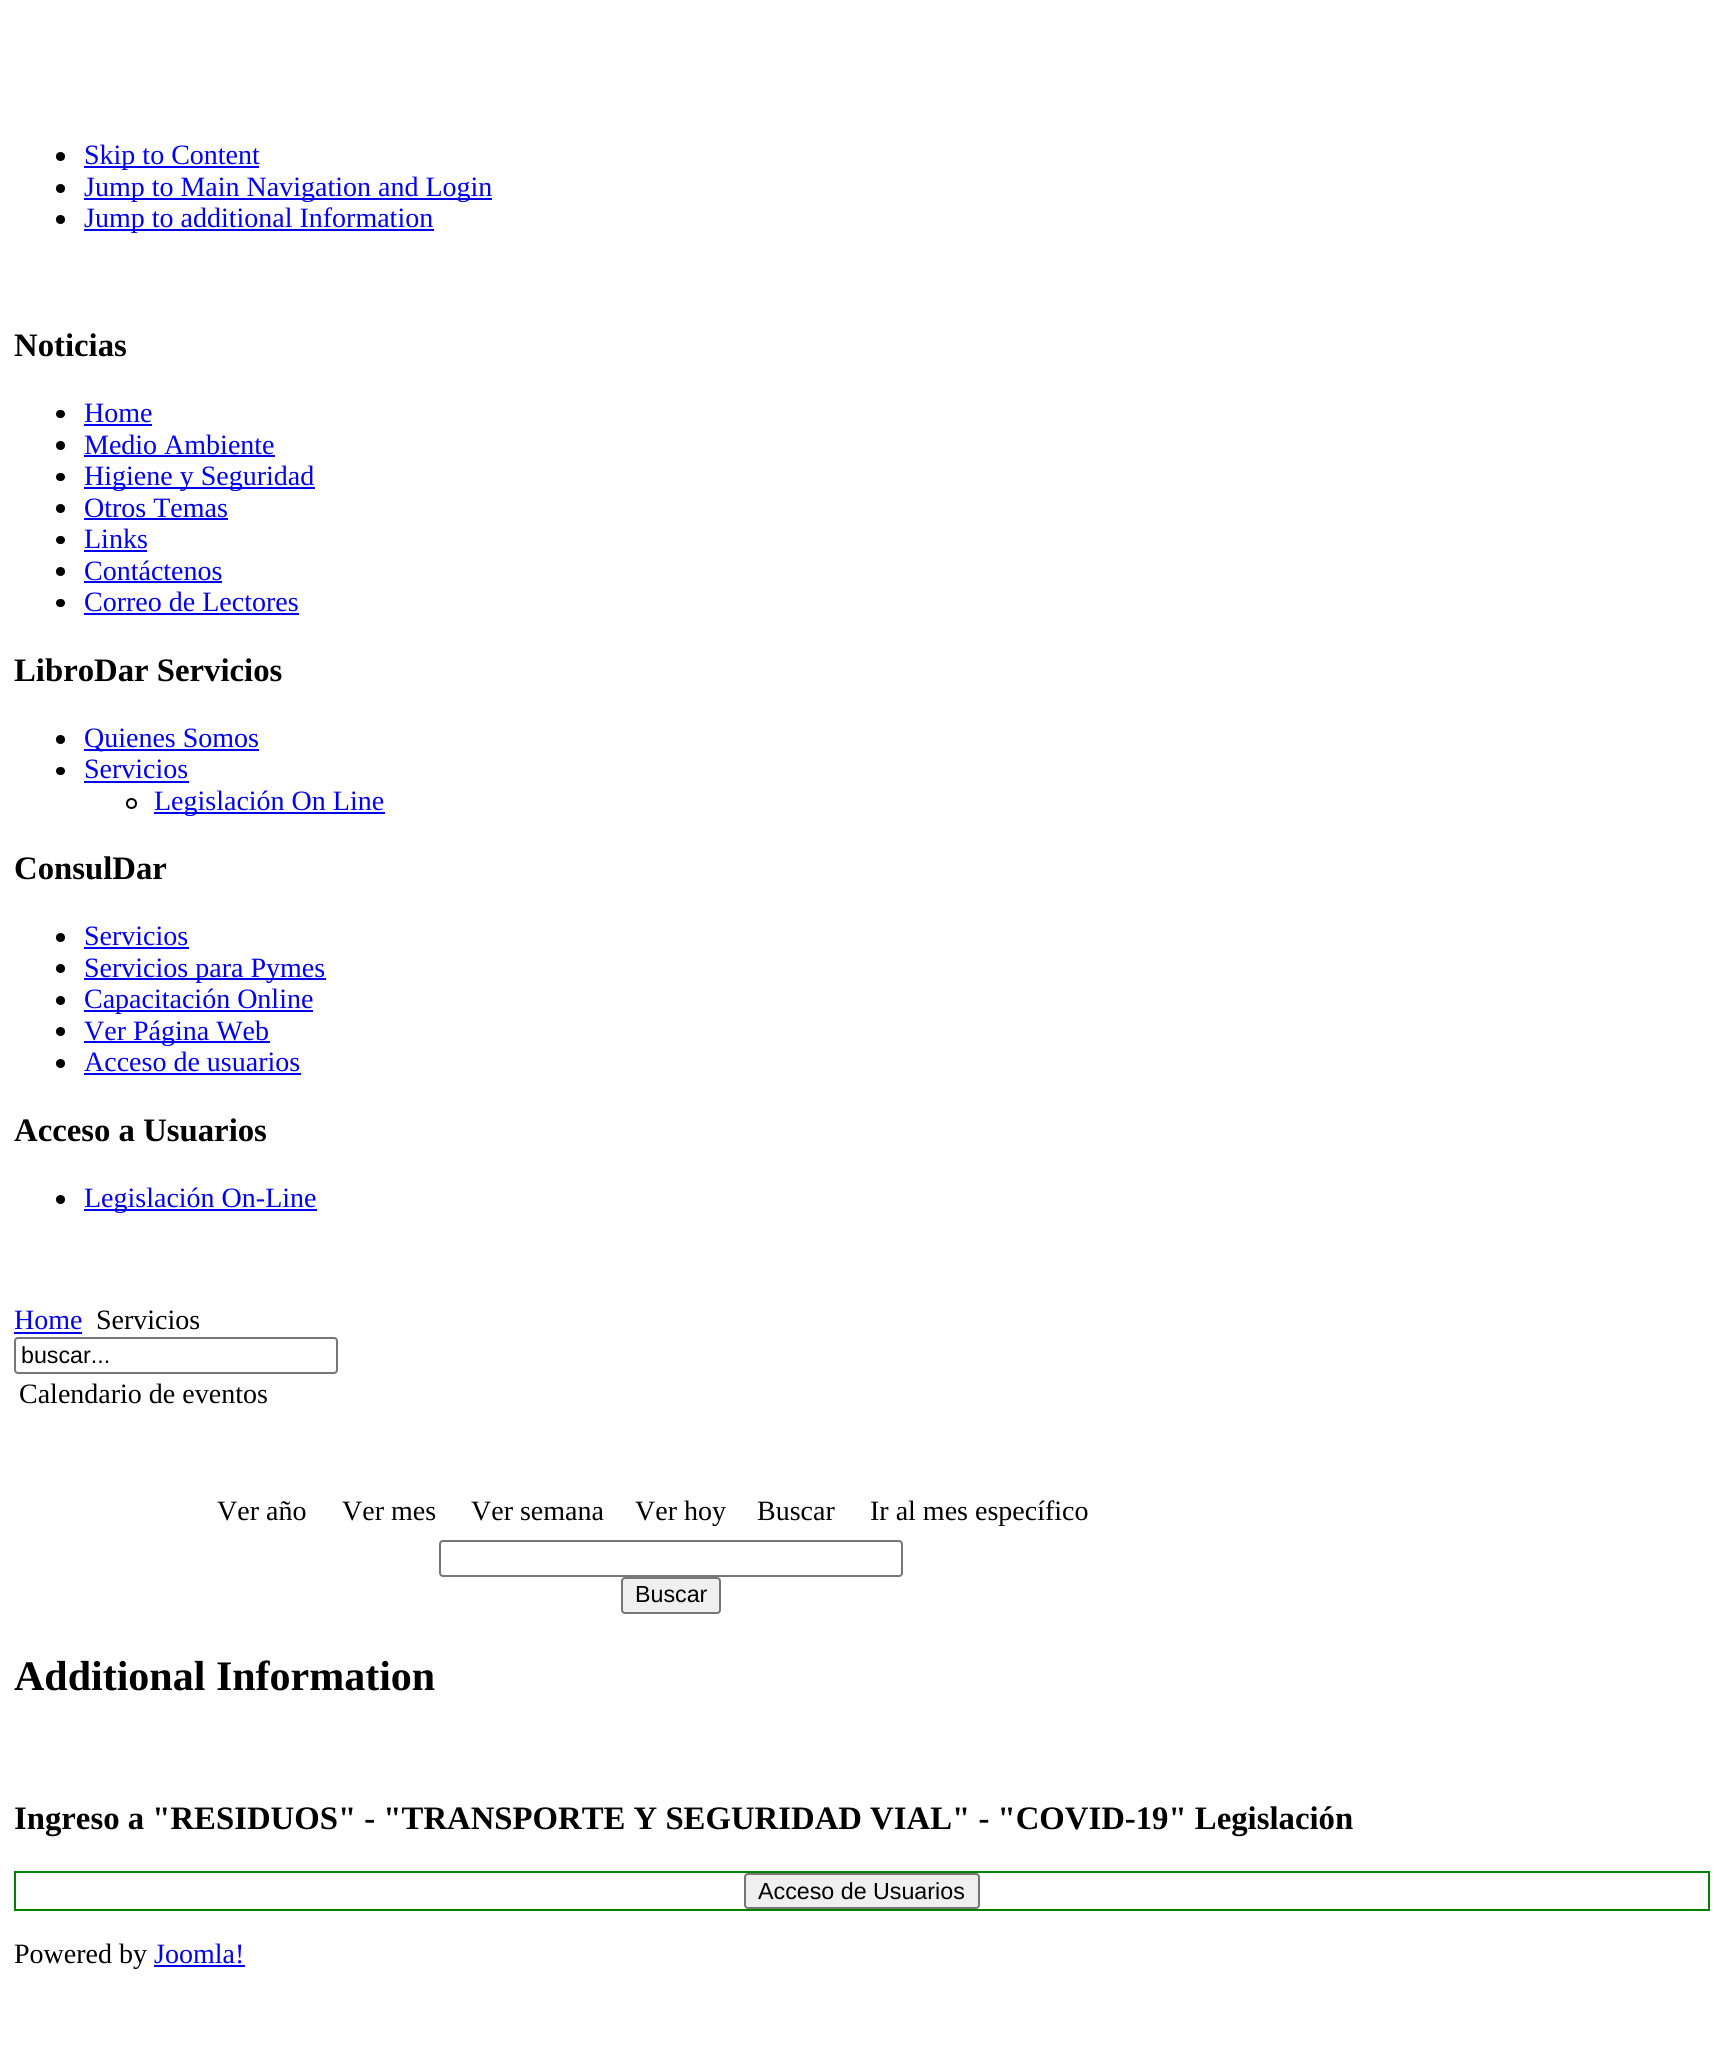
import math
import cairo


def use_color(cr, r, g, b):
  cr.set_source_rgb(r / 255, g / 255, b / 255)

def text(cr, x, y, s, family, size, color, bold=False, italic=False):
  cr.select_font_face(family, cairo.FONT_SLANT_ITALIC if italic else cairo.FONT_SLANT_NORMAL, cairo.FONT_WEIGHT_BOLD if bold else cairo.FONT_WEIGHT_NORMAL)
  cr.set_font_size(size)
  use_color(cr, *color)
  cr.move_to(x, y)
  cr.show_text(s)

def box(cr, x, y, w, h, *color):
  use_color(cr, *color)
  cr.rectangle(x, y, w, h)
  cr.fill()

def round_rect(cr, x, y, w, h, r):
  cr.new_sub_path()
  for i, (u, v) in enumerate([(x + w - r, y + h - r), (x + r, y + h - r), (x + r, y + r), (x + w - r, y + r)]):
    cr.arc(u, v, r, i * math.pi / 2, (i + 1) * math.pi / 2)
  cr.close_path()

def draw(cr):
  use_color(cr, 255, 255, 255)
  cr.paint()
  use_color(cr, 0, 0, 0)
  cr.arc(60.5, 156.5, 4.5, 0, 2 * math.pi)
  cr.fill()
  box(cr, 84, 166, 175, 2, 0, 0, 238)
  use_color(cr, 0, 0, 0)
  cr.arc(60.5, 188.5, 4.5, 0, 2 * math.pi)
  cr.fill()
  box(cr, 84, 198, 408, 2, 0, 0, 238)
  use_color(cr, 0, 0, 0)
  cr.arc(60.5, 219.5, 4.5, 0, 2 * math.pi)
  cr.fill()
  box(cr, 84, 229, 350, 2, 0, 0, 238)
  use_color(cr, 0, 0, 0)
  round_rect(cr, 56, 410, 9, 8, 4)
  cr.fill()
  box(cr, 84, 424, 68, 2, 0, 0, 238)
  use_color(cr, 0, 0, 0)
  cr.arc(60.5, 445.5, 4.5, 0, 2 * math.pi)
  cr.fill()
  box(cr, 84, 455, 191, 2, 0, 0, 238)
  use_color(cr, 0, 0, 0)
  round_rect(cr, 56, 473, 9, 8, 4)
  cr.fill()
  box(cr, 84, 487, 231, 2, 0, 0, 238)
  use_color(cr, 0, 0, 0)
  cr.arc(60.5, 508.5, 4.5, 0, 2 * math.pi)
  cr.fill()
  box(cr, 84, 518, 144, 2, 0, 0, 238)
  use_color(cr, 0, 0, 0)
  round_rect(cr, 56, 536, 9, 8, 4)
  cr.fill()
  box(cr, 84, 550, 63, 2, 0, 0, 238)
  use_color(cr, 0, 0, 0)
  cr.arc(60.5, 571.5, 4.5, 0, 2 * math.pi)
  cr.fill()
  box(cr, 84, 581, 138, 2, 0, 0, 238)
  use_color(cr, 0, 0, 0)
  round_rect(cr, 56, 599, 9, 8, 4)
  cr.fill()
  box(cr, 84, 613, 215, 2, 0, 0, 238)
  use_color(cr, 0, 0, 0)
  cr.arc(60.5, 739.5, 4.5, 0, 2 * math.pi)
  cr.fill()
  box(cr, 84, 749, 175, 2, 0, 0, 238)
  use_color(cr, 0, 0, 0)
  round_rect(cr, 56, 767, 9, 8, 4)
  cr.fill()
  box(cr, 84, 781, 105, 2, 0, 0, 238)
  cr.arc(131.5, 803.5, 4.5, 0, 2 * math.pi)
  use_color(cr, 0, 0, 0)
  cr.stroke()
  box(cr, 154, 812, 231, 2, 0, 0, 238)
  use_color(cr, 0, 0, 0)
  cr.arc(60.5, 937.5, 4.5, 0, 2 * math.pi)
  cr.fill()
  box(cr, 84, 947, 105, 2, 0, 0, 238)
  use_color(cr, 0, 0, 0)
  cr.arc(60.5, 968.5, 4.5, 0, 2 * math.pi)
  cr.fill()
  box(cr, 84, 978, 242, 2, 0, 0, 238)
  use_color(cr, 0, 0, 0)
  cr.arc(60.5, 1000.5, 4.5, 0, 2 * math.pi)
  cr.fill()
  box(cr, 84, 1010, 229, 2, 0, 0, 238)
  use_color(cr, 0, 0, 0)
  cr.arc(60.5, 1031.5, 4.5, 0, 2 * math.pi)
  cr.fill()
  box(cr, 84, 1041, 186, 2, 0, 0, 238)
  use_color(cr, 0, 0, 0)
  cr.arc(60.5, 1063.5, 4.5, 0, 2 * math.pi)
  cr.fill()
  box(cr, 84, 1073, 217, 2, 0, 0, 238)
  use_color(cr, 0, 0, 0)
  cr.arc(60.5, 1199.5, 4.5, 0, 2 * math.pi)
  cr.fill()
  box(cr, 84, 1209, 233, 2, 0, 0, 238)
  box(cr, 14, 1332, 68, 2, 0, 0, 238)
  round_rect(cr, 15, 1338, 322, 35, 3)
  use_color(cr, 118, 118, 118)
  cr.stroke()
  round_rect(cr, 440, 1541, 462, 35, 3)
  cr.stroke()
  use_color(cr, 239, 239, 239)
  round_rect(cr, 622, 1578, 98, 35, 3)
  cr.fill_preserve()
  use_color(cr, 118, 118, 118)
  cr.stroke()
  cr.rectangle(15, 1872, 1694, 38)
  use_color(cr, 0, 128, 0)
  cr.stroke()
  use_color(cr, 239, 239, 239)
  round_rect(cr, 745, 1874, 234, 34, 3)
  cr.fill_preserve()
  use_color(cr, 118, 118, 118)
  cr.stroke()
  box(cr, 154, 1965, 91, 2, 0, 0, 238)
  text(cr, 84, 164, "Skip to Content", "Liberation Serif", 28, (0, 0, 238))
  text(cr, 84, 196, "Jump to Main Navigation and Login", "Liberation Serif", 28, (0, 0, 238))
  text(cr, 84, 227, "Jump to additional Information", "Liberation Serif", 28, (0, 0, 238))
  text(cr, 14, 356, "Noticias", "Liberation Serif", 32.75, (0, 0, 0), bold=True)
  text(cr, 84, 422, "Home", "Liberation Serif", 28, (0, 0, 238))
  text(cr, 84, 454, "Medio Ambiente", "Liberation Serif", 28, (0, 0, 238))
  text(cr, 84, 485, "Higiene y Seguridad", "Liberation Serif", 28, (0, 0, 238))
  text(cr, 84, 517, "Otros Temas", "Liberation Serif", 28, (0, 0, 238))
  text(cr, 84, 548, "Links", "Liberation Serif", 28, (0, 0, 238))
  text(cr, 84, 580, "Contáctenos", "Liberation Serif", 28, (0, 0, 238))
  text(cr, 84, 611, "Correo de Lectores", "Liberation Serif", 28, (0, 0, 238))
  text(cr, 14, 681, "LibroDar Servicios", "Liberation Serif", 32.75, (0, 0, 0), bold=True)
  text(cr, 84, 747, "Quienes Somos", "Liberation Serif", 28, (0, 0, 238))
  text(cr, 84, 778, "Servicios", "Liberation Serif", 28, (0, 0, 238))
  text(cr, 154, 810, "Legislación On Line", "Liberation Serif", 28, (0, 0, 238))
  text(cr, 14, 879, "ConsulDar", "Liberation Serif", 32.75, (0, 0, 0), bold=True)
  text(cr, 84, 945, "Servicios", "Liberation Serif", 28, (0, 0, 238))
  text(cr, 84, 977, "Servicios para Pymes", "Liberation Serif", 28, (0, 0, 238))
  text(cr, 84, 1008, "Capacitación Online", "Liberation Serif", 28, (0, 0, 238))
  text(cr, 84, 1040, "Ver Página Web", "Liberation Serif", 28, (0, 0, 238))
  text(cr, 84, 1071, "Acceso de usuarios", "Liberation Serif", 28, (0, 0, 238))
  text(cr, 14, 1141, "Acceso a Usuarios", "Liberation Serif", 32.75, (0, 0, 0), bold=True)
  text(cr, 84, 1207, "Legislación On-Line", "Liberation Serif", 28, (0, 0, 238))
  text(cr, 14, 1329, "Home", "Liberation Serif", 28, (0, 0, 238))
  text(cr, 96, 1329, "Servicios", "Liberation Serif", 28, (0, 0, 0))
  text(cr, 21, 1363, "buscar...", "Liberation Sans", 23.25, (0, 0, 0))
  text(cr, 19, 1403, "Calendario de eventos", "Liberation Serif", 28, (0, 0, 0))
  text(cr, 217, 1520, "Ver año", "Liberation Serif", 28, (0, 0, 0))
  text(cr, 342, 1520, "Ver mes", "Liberation Serif", 28, (0, 0, 0))
  text(cr, 471, 1520, "Ver semana", "Liberation Serif", 28, (0, 0, 0))
  text(cr, 635, 1520, "Ver hoy", "Liberation Serif", 28, (0, 0, 0))
  text(cr, 757, 1520, "Buscar", "Liberation Serif", 28, (0, 0, 0))
  text(cr, 870, 1520, "Ir al mes específico", "Liberation Serif", 28, (0, 0, 0))
  text(cr, 635, 1602, "Buscar", "Liberation Sans", 23.25, (0, 0, 0))
  text(cr, 14, 1690, "Additional Information", "Liberation Serif", 42, (0, 0, 0), bold=True)
  text(cr, 14, 1829, "Ingreso a \"RESIDUOS\" - \"TRANSPORTE Y SEGURIDAD VIAL\" - \"COVID-19\" Legislación", "Liberation Serif", 32.75, (0, 0, 0), bold=True)
  text(cr, 758, 1899, "Acceso de Usuarios", "Liberation Sans", 23.25, (0, 0, 0))
  text(cr, 14, 1963, "Powered by", "Liberation Serif", 28, (0, 0, 0))
  text(cr, 154, 1963, "Joomla!", "Liberation Serif", 28, (0, 0, 238))


surface = cairo.ImageSurface(cairo.FORMAT_RGB24, 1723, 2071)
cr = cairo.Context(surface)
options = cairo.FontOptions()
options.set_hint_metrics(cairo.HINT_METRICS_OFF)
options.set_hint_style(cairo.HINT_STYLE_NONE)
cr.set_font_options(options)
cr.set_miter_limit(4)
draw(cr)
surface.write_to_png("out.png")
